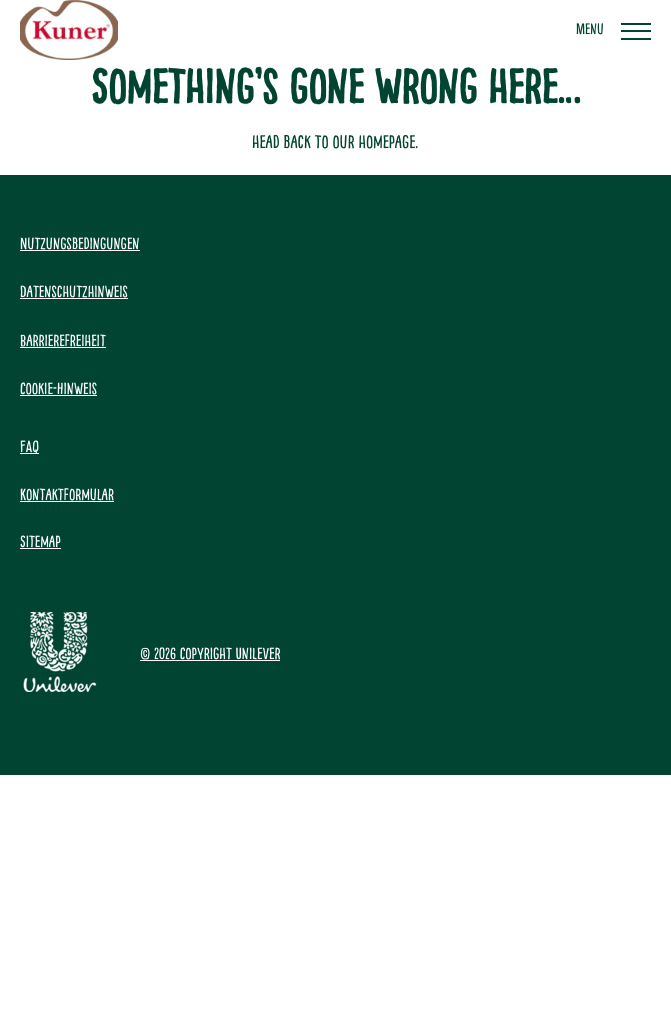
import math
import cairo


def use_color(cr, r, g, b):
  cr.set_source_rgb(r / 255, g / 255, b / 255)

def text(cr, x, y, s, family, size, color, bold=False, italic=False):
  cr.select_font_face(family, cairo.FONT_SLANT_ITALIC if italic else cairo.FONT_SLANT_NORMAL, cairo.FONT_WEIGHT_BOLD if bold else cairo.FONT_WEIGHT_NORMAL)
  cr.set_font_size(size)
  use_color(cr, *color)
  cr.move_to(x, y)
  cr.show_text(s)

def box(cr, x, y, w, h, *color):
  use_color(cr, *color)
  cr.rectangle(x, y, w, h)
  cr.fill()

def picture(cr, path, x, y, w, h):
  cr.save()
  cr.set_source_surface(cairo.ImageSurface.create_from_png(path), x, y)
  cr.rectangle(x, y, w, h)
  cr.fill()
  cr.restore()

def draw(cr):
  use_color(cr, 255, 255, 255)
  cr.paint()
  picture(cr, "img_01.png", 20, 0, 98, 60)
  box(cr, 621, 23, 30, 2, 0, 68, 49)
  box(cr, 621, 30, 30, 2, 0, 68, 49)
  box(cr, 621, 38, 30, 2, 0, 68, 49)
  box(cr, 0, 175, 671, 600, 0, 68, 49)
  box(cr, 20, 250, 120, 1, 255, 255, 255)
  box(cr, 20, 298, 108, 1, 255, 255, 255)
  box(cr, 20, 347, 86, 1, 255, 255, 255)
  box(cr, 20, 395, 77, 1, 255, 255, 255)
  box(cr, 20, 453, 19, 1, 255, 255, 255)
  box(cr, 20, 501, 94, 1, 255, 255, 255)
  box(cr, 20, 548, 41, 1, 255, 255, 255)
  picture(cr, "img_02.png", 23, 612, 74, 80)
  box(cr, 140, 660, 140, 1, 255, 255, 255)
  text(cr, 576, 34, "Menu", "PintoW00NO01", 15, (0, 68, 49))
  text(cr, 91, 103, "Something’s gone wrong here…", "PintoW00NO01", 47.25, (0, 68, 49), bold=True)
  text(cr, 252, 148, "head back to our homepage.", "PintoW00NO01", 18, (0, 68, 49))
  text(cr, 20, 249, "Nutzungsbedingungen", "PintoW00NO01", 16, (255, 255, 255))
  text(cr, 20, 297, "Datenschutzhinweis", "PintoW00NO01", 16, (255, 255, 255))
  text(cr, 20, 346, "Barrierefreiheit", "PintoW00NO01", 16, (255, 255, 255))
  text(cr, 20, 394, "Cookie-Hinweis", "PintoW00NO01", 16, (255, 255, 255))
  text(cr, 20, 452, "FAQ", "PintoW00NO01", 16, (255, 255, 255))
  text(cr, 20, 500, "Kontaktformular", "PintoW00NO01", 16, (255, 255, 255))
  text(cr, 20, 547, "Sitemap", "PintoW00NO01", 16, (255, 255, 255))
  text(cr, 140, 659, "© 2026 Copyright Unilever", "PintoW00NO01", 16, (255, 255, 255))


surface = cairo.ImageSurface(cairo.FORMAT_RGB24, 671, 1017)
cr = cairo.Context(surface)
options = cairo.FontOptions()
options.set_hint_metrics(cairo.HINT_METRICS_OFF)
options.set_hint_style(cairo.HINT_STYLE_NONE)
cr.set_font_options(options)
cr.set_miter_limit(4)
draw(cr)
surface.write_to_png("out.png")
